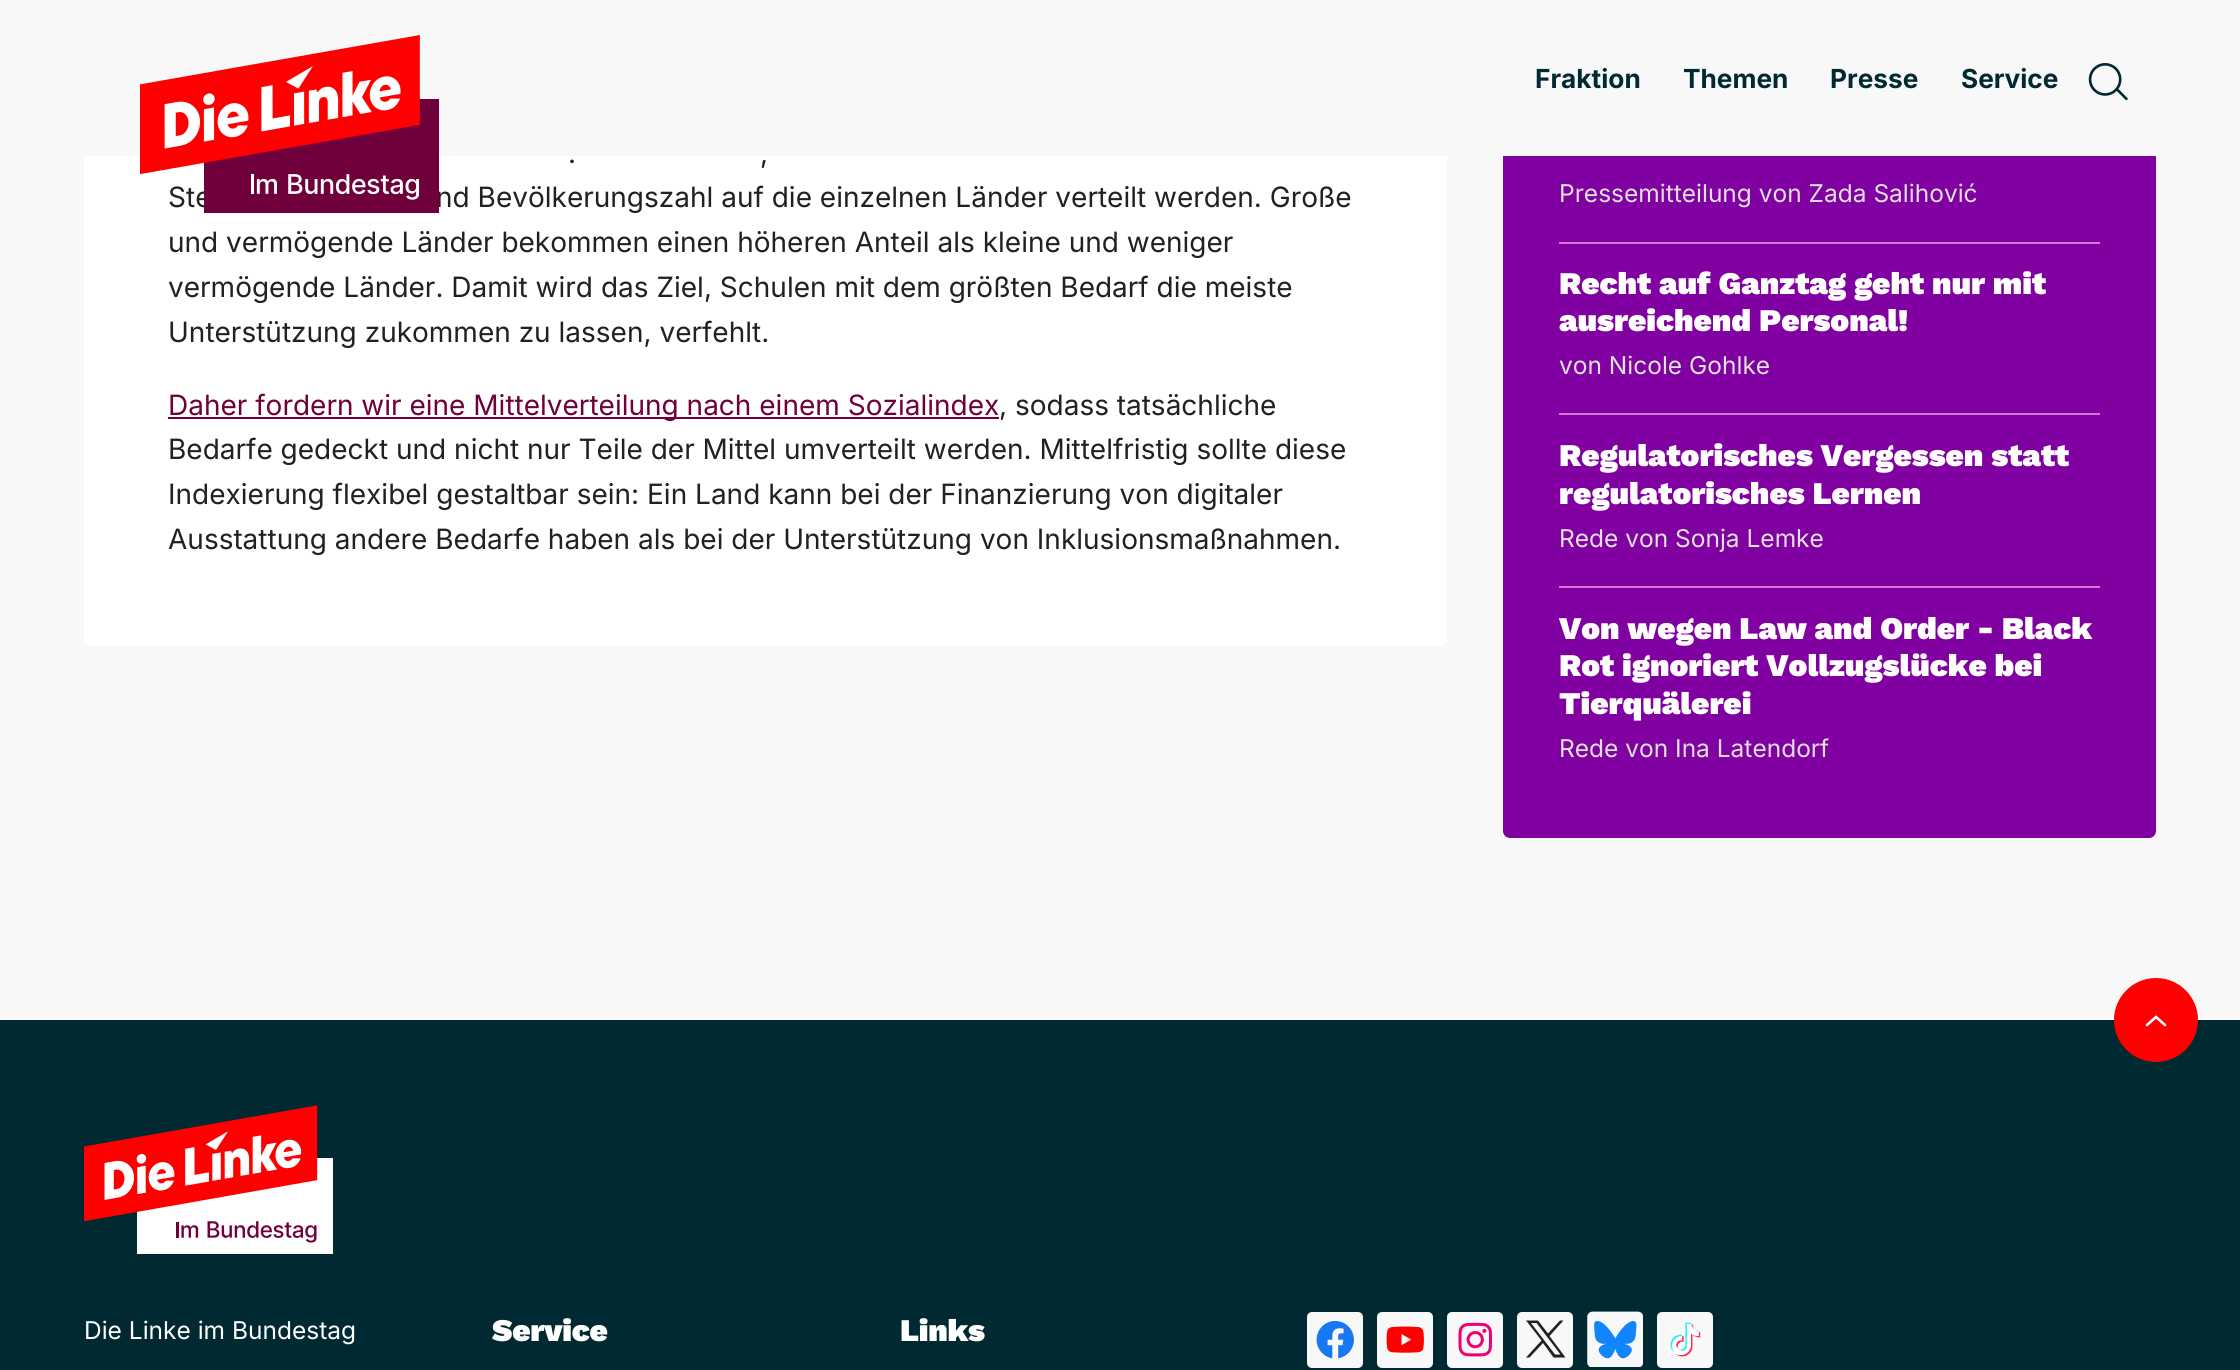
import math
import cairo


def use_color(cr, r, g, b):
  cr.set_source_rgb(r / 255, g / 255, b / 255)

def text(cr, x, y, s, family, size, color, bold=False, italic=False):
  cr.select_font_face(family, cairo.FONT_SLANT_ITALIC if italic else cairo.FONT_SLANT_NORMAL, cairo.FONT_WEIGHT_BOLD if bold else cairo.FONT_WEIGHT_NORMAL)
  cr.set_font_size(size)
  use_color(cr, *color)
  cr.move_to(x, y)
  cr.show_text(s)

def spaced_text(cr, x, y, s, letter, word):
  cr.move_to(x, y)
  for ch in s:
    cr.show_text(ch)
    cr.rel_move_to(letter + word * (ch == ' '), 0)

def box(cr, x, y, w, h, *color):
  use_color(cr, *color)
  cr.rectangle(x, y, w, h)
  cr.fill()

def round_rect(cr, x, y, w, h, r):
  cr.new_sub_path()
  for i, (u, v) in enumerate([(x + w - r, y + h - r), (x + r, y + h - r), (x + r, y + r), (x + w - r, y + r)]):
    cr.arc(u, v, r, i * math.pi / 2, (i + 1) * math.pi / 2)
  cr.close_path()

def picture(cr, path, x, y, w, h):
  cr.save()
  cr.set_source_surface(cairo.ImageSurface.create_from_png(path), x, y)
  cr.rectangle(x, y, w, h)
  cr.fill()
  cr.restore()

def draw(cr):
  use_color(cr, 248, 248, 248)
  cr.paint()
  use_color(cr, 255, 255, 255)
  round_rect(cr, 84, -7, 1363, 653, 7)
  cr.fill()
  use_color(cr, 129, 0, 161)
  round_rect(cr, 1503, -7, 653, 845, 7)
  cr.fill()
  box(cr, 84, 0, 2072, 156, 248, 248, 248)
  picture(cr, "img_02.png", 2088, 63, 40, 38)
  box(cr, 168, 417, 831, 2, 111, 0, 60)
  box(cr, 1559, 242, 541, 2, 214, 117, 216)
  box(cr, 1559, 413, 541, 2, 214, 117, 216)
  box(cr, 1559, 586, 541, 2, 214, 117, 216)
  box(cr, 0, 1020, 2240, 350, 0, 41, 50)
  use_color(cr, 255, 0, 0)
  cr.arc(2156, 1020, 42, 0, 2 * math.pi)
  cr.fill()
  cr.new_path()
  cr.move_to(2147, 1025)
  cr.line_to(2156, 1017)
  cr.line_to(2165, 1025)
  use_color(cr, 255, 255, 255)
  cr.set_line_width(2.6)
  cr.set_line_cap(cairo.LINE_CAP_ROUND)
  cr.stroke()
  picture(cr, "img_03.png", 84, 1105, 249, 149)
  picture(cr, "img_04.png", 1307, 1312, 56, 56)
  picture(cr, "img_05.png", 1377, 1312, 56, 56)
  picture(cr, "img_06.png", 1447, 1312, 56, 56)
  use_color(cr, 248, 248, 248)
  round_rect(cr, 1517, 1312, 56, 56, 5)
  cr.fill()
  use_color(cr, 33, 33, 33)
  cr.new_path()
  cr.move_to(1526, 1320.5)
  cr.line_to(1541.5, 1340.5)
  cr.line_to(1526, 1357.5)
  cr.line_to(1529.5, 1357.5)
  cr.line_to(1543, 1343)
  cr.line_to(1553.5, 1357.5)
  cr.line_to(1565.5, 1357.5)
  cr.line_to(1549.5, 1336)
  cr.line_to(1563.5, 1320.5)
  cr.line_to(1560, 1320.5)
  cr.line_to(1548, 1333.5)
  cr.line_to(1538, 1320.5)
  cr.close_path()
  cr.move_to(1531, 1323)
  cr.line_to(1536.5, 1323)
  cr.line_to(1560.5, 1354.5)
  cr.line_to(1555, 1354.5)
  cr.close_path()
  cr.fill()
  picture(cr, "img_07.png", 1587, 1311, 56, 56)
  picture(cr, "img_08.png", 1657, 1312, 56, 56)
  text(cr, 1535, 88, "Fraktion", "Inter", 26.25, (0, 41, 50), bold=True)
  text(cr, 1683, 88, "Themen", "Inter", 26.25, (0, 41, 50), bold=True)
  text(cr, 1830, 88, "Presse", "Inter", 26.25, (0, 41, 50), bold=True)
  text(cr, 1961, 88, "Service", "Inter", 26.25, (0, 41, 50), bold=True)
  text(cr, 568, 163, ".", "Inter", 28, (33, 33, 33))
  text(cr, 760, 163, ",", "Inter", 28, (33, 33, 33))
  text(cr, 168, 207, "Ste", "Inter", 28, (33, 33, 33))
  text(cr, 436, 207, "nd Bevölkerungszahl auf die einzelnen Länder verteilt werden. Große", "Inter", 28, (33, 33, 33))
  picture(cr, "img_01.png", 140, 35, 299, 178)
  text(cr, 168, 252, "und vermögende Länder bekommen einen höheren Anteil als kleine und weniger", "Inter", 28, (33, 33, 33))
  text(cr, 168, 297, "vermögende Länder. Damit wird das Ziel, Schulen mit dem größten Bedarf die meiste", "Inter", 28, (33, 33, 33))
  text(cr, 168, 342, "Unterstützung zukommen zu lassen, verfehlt.", "Inter", 28, (33, 33, 33))
  text(cr, 168, 415, "Daher fordern wir eine Mittelverteilung nach einem Sozialindex", "Inter", 28, (111, 0, 60))
  text(cr, 999, 415, ", sodass tatsächliche", "Inter", 28, (33, 33, 33))
  text(cr, 168, 459, "Bedarfe gedeckt und nicht nur Teile der Mittel umverteilt werden. Mittelfristig sollte diese", "Inter", 28, (33, 33, 33))
  text(cr, 168, 504, "Indexierung flexibel gestaltbar sein: Ein Land kann bei der Finanzierung von digitaler", "Inter", 28, (33, 33, 33))
  text(cr, 168, 549, "Ausstattung andere Bedarfe haben als bei der Unterstützung von Inklusionsmaßnahmen.", "Inter", 28, (33, 33, 33))
  text(cr, 1559, 202, "Pressemitteilung von Zada Salihović", "Inter", 24.5, (225, 225, 225))
  text(cr, 1559, 294, "Recht auf Ganztag geht nur mit", "Work Sans Black", 31.5, (255, 255, 255))
  text(cr, 1559, 331, "ausreichend Personal!", "Work Sans Black", 31.5, (255, 255, 255))
  text(cr, 1559, 374, "von Nicole Gohlke", "Inter", 24.5, (225, 225, 225))
  text(cr, 1559, 466, "Regulatorisches Vergessen statt", "Work Sans Black", 31.5, (255, 255, 255))
  text(cr, 1559, 504, "regulatorisches Lernen", "Work Sans Black", 31.5, (255, 255, 255))
  text(cr, 1559, 547, "Rede von Sonja Lemke", "Inter", 24.5, (225, 225, 225))
  text(cr, 1559, 639, "Von wegen Law and Order - Black", "Work Sans Black", 31.5, (255, 255, 255))
  text(cr, 1559, 676, "Rot ignoriert Vollzugslücke bei", "Work Sans Black", 31.5, (255, 255, 255))
  text(cr, 1559, 714, "Tierquälerei", "Work Sans Black", 31.5, (255, 255, 255))
  text(cr, 1559, 757, "Rede von Ina Latendorf", "Inter", 24.5, (225, 225, 225))
  text(cr, 84, 1339, "Die Linke im Bundestag", "Inter", 24.5, (255, 255, 255))
  cr.select_font_face("Work Sans Black")
  cr.set_font_size(31.5)
  spaced_text(cr, 492, 1341, "Service", -0.25, 0)
  spaced_text(cr, 900, 1341, "Links", -0.25, 0)


surface = cairo.ImageSurface(cairo.FORMAT_RGB24, 2240, 1370)
cr = cairo.Context(surface)
options = cairo.FontOptions()
options.set_hint_metrics(cairo.HINT_METRICS_OFF)
options.set_hint_style(cairo.HINT_STYLE_NONE)
cr.set_font_options(options)
cr.set_miter_limit(4)
draw(cr)
surface.write_to_png("out.png")
